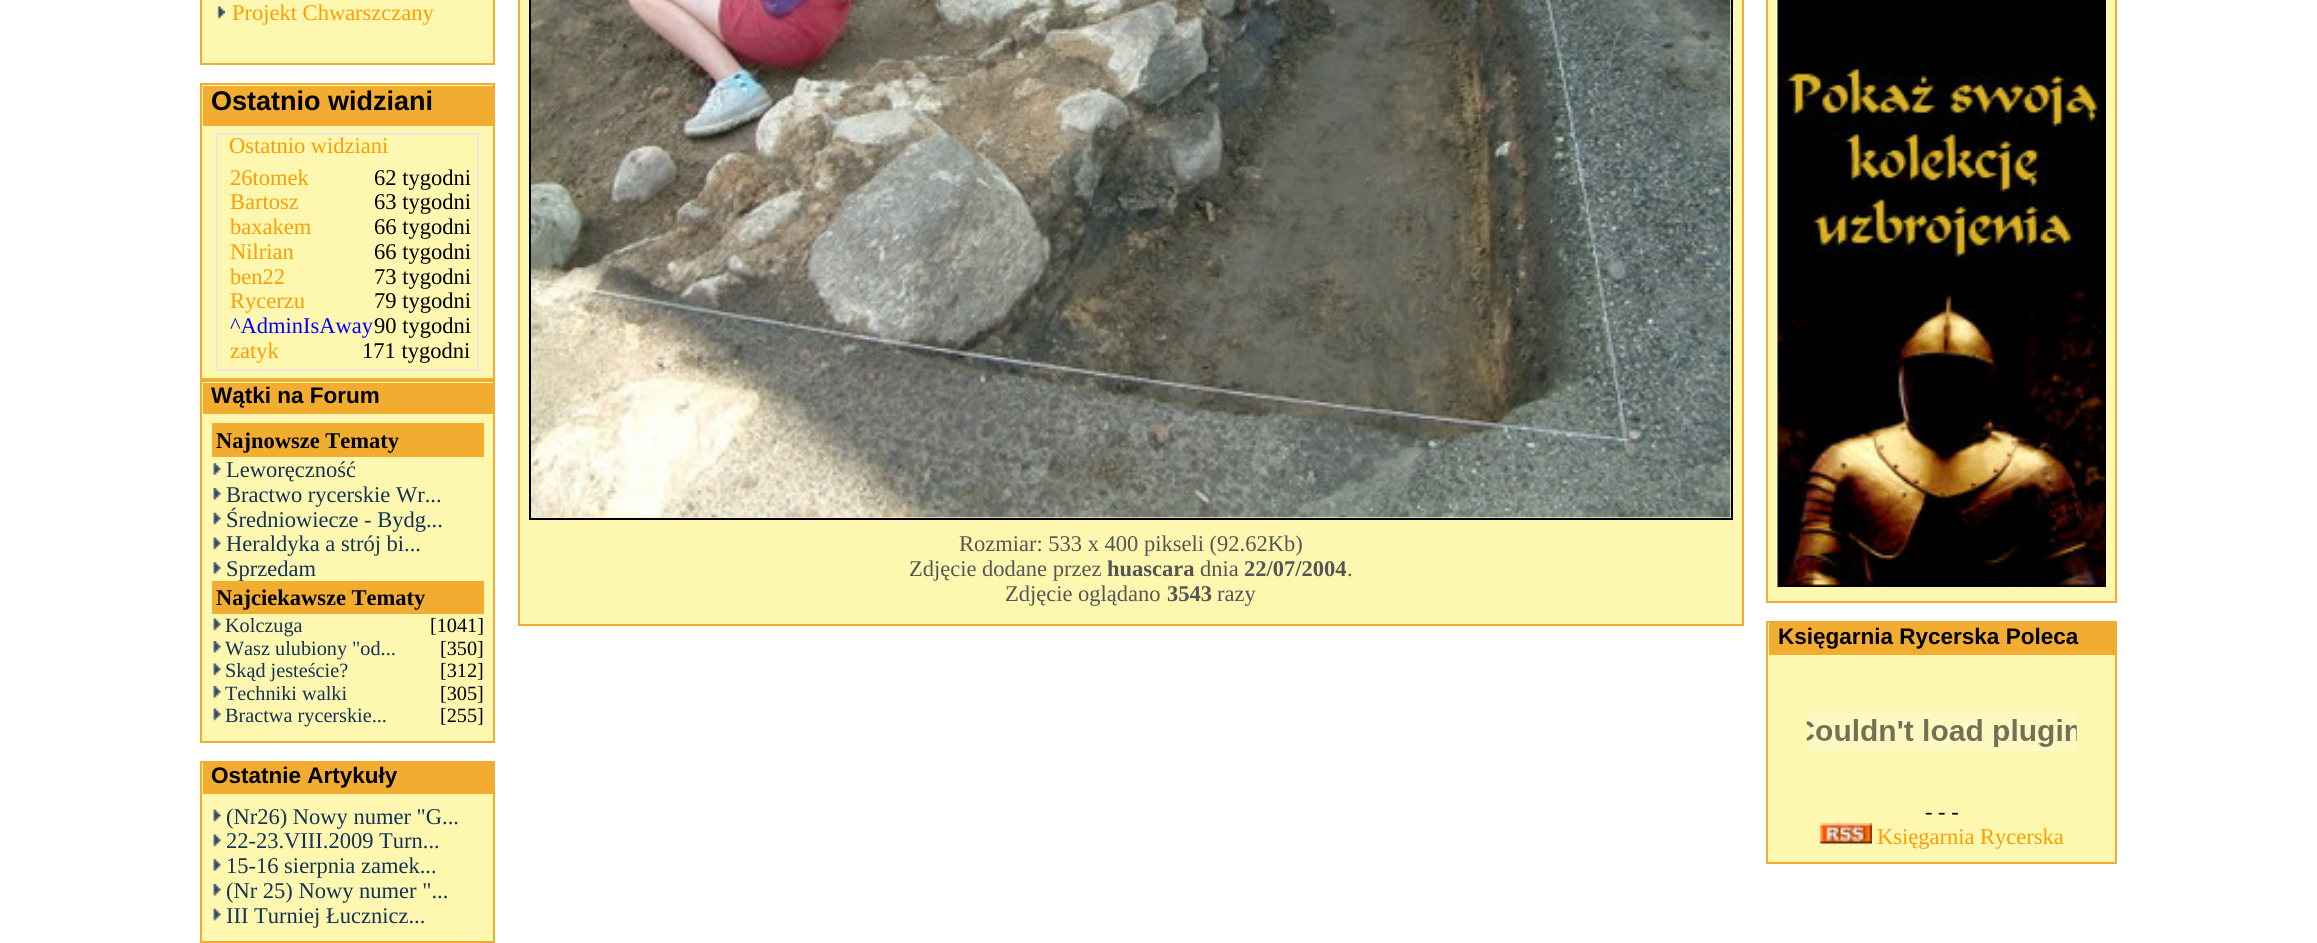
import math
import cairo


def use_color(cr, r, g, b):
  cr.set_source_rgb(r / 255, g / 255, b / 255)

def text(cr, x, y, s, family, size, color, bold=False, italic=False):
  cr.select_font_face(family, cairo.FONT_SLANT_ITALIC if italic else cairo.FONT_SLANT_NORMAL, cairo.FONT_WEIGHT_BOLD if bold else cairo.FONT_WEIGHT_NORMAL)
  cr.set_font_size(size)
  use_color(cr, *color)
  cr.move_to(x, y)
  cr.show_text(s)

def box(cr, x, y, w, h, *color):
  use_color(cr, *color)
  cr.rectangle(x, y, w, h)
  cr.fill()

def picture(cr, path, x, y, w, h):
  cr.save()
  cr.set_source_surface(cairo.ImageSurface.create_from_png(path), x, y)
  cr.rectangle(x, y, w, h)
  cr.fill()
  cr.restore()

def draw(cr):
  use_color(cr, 255, 255, 255)
  cr.paint()
  use_color(cr, 253, 247, 176)
  cr.rectangle(201, -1, 293, 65)
  cr.fill_preserve()
  use_color(cr, 242, 173, 49)
  cr.stroke()
  picture(cr, "img_01.png", 217, 6, 8, 13)
  use_color(cr, 253, 247, 176)
  cr.rectangle(201, 84, 293, 295)
  cr.fill_preserve()
  use_color(cr, 242, 173, 49)
  cr.stroke()
  box(cr, 203, 86, 290, 40, 242, 173, 49)
  cr.rectangle(217, 134, 261, 236)
  use_color(cr, 235, 232, 224)
  cr.stroke()
  use_color(cr, 253, 247, 176)
  cr.rectangle(201, 381, 293, 361)
  cr.fill_preserve()
  use_color(cr, 242, 173, 49)
  cr.stroke()
  box(cr, 203, 383, 290, 31, 242, 173, 49)
  box(cr, 212, 423, 272, 34, 242, 173, 49)
  picture(cr, "img_02.png", 213, 463, 8, 13)
  picture(cr, "img_03.png", 213, 488, 8, 12)
  picture(cr, "img_04.png", 213, 512, 8, 13)
  picture(cr, "img_05.png", 213, 537, 8, 13)
  picture(cr, "img_02.png", 213, 562, 8, 13)
  box(cr, 212, 581, 272, 33, 242, 173, 49)
  picture(cr, "img_05.png", 213, 618, 8, 13)
  picture(cr, "img_03.png", 213, 641, 8, 12)
  picture(cr, "img_05.png", 213, 663, 8, 13)
  picture(cr, "img_03.png", 213, 686, 8, 12)
  picture(cr, "img_05.png", 213, 708, 8, 13)
  use_color(cr, 253, 247, 176)
  cr.rectangle(201, 762, 293, 180)
  cr.fill_preserve()
  use_color(cr, 242, 173, 49)
  cr.stroke()
  box(cr, 203, 763, 290, 31, 242, 173, 49)
  picture(cr, "img_06.png", 213, 809, 8, 13)
  picture(cr, "img_05.png", 213, 834, 8, 13)
  picture(cr, "img_02.png", 213, 859, 8, 13)
  picture(cr, "img_03.png", 213, 884, 8, 12)
  picture(cr, "img_04.png", 213, 908, 8, 13)
  use_color(cr, 253, 247, 176)
  cr.rectangle(519, -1, 1224, 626)
  cr.fill_preserve()
  use_color(cr, 242, 173, 49)
  cr.stroke()
  cr.rectangle(530, -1, 1202, 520)
  use_color(cr, 0, 0, 0)
  cr.stroke()
  picture(cr, "img_07.png", 531, 0, 1200, 518)
  use_color(cr, 253, 247, 176)
  cr.rectangle(1767, -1, 349, 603)
  cr.fill_preserve()
  use_color(cr, 242, 173, 49)
  cr.stroke()
  picture(cr, "img_08.png", 1777, 0, 329, 587)
  use_color(cr, 253, 247, 176)
  cr.rectangle(1767, 622, 349, 241)
  cr.fill_preserve()
  use_color(cr, 242, 173, 49)
  cr.stroke()
  box(cr, 1769, 623, 346, 32, 242, 173, 49)
  picture(cr, "img_09.png", 1806, 711, 271, 40)
  picture(cr, "img_10.png", 1820, 823, 52, 21)
  text(cr, 232, 20, "Projekt Chwarszczany", "Liberation Serif", 22.5, (255, 156, 0))
  text(cr, 211, 110, "Ostatnio widziani", "Liberation Sans", 27, (0, 0, 0), bold=True)
  text(cr, 229, 153, "Ostatnio widziani", "Liberation Serif", 22.5, (255, 156, 0))
  text(cr, 230, 185, "26tomek", "Liberation Serif", 22.5, (255, 156, 0))
  text(cr, 374, 185, "62 tygodni", "Liberation Serif", 22.5, (0, 0, 0))
  text(cr, 230, 209, "Bartosz", "Liberation Serif", 22.5, (255, 156, 0))
  text(cr, 374, 209, "63 tygodni", "Liberation Serif", 22.5, (0, 0, 0))
  text(cr, 230, 234, "baxakem", "Liberation Serif", 22.5, (255, 156, 0))
  text(cr, 374, 234, "66 tygodni", "Liberation Serif", 22.5, (0, 0, 0))
  text(cr, 230, 259, "Nilrian", "Liberation Serif", 22.5, (255, 156, 0))
  text(cr, 374, 259, "66 tygodni", "Liberation Serif", 22.5, (0, 0, 0))
  text(cr, 230, 284, "ben22", "Liberation Serif", 22.5, (255, 156, 0))
  text(cr, 374, 284, "73 tygodni", "Liberation Serif", 22.5, (0, 0, 0))
  text(cr, 230, 308, "Rycerzu", "Liberation Serif", 22.5, (255, 156, 0))
  text(cr, 374, 308, "79 tygodni", "Liberation Serif", 22.5, (0, 0, 0))
  text(cr, 230, 333, "^AdminIsAway", "Liberation Serif", 22.5, (0, 0, 255))
  text(cr, 374, 333, "90 tygodni", "Liberation Serif", 22.5, (0, 0, 0))
  text(cr, 230, 358, "zatyk", "Liberation Serif", 22.5, (255, 156, 0))
  text(cr, 362, 358, "171 tygodni", "Liberation Serif", 22.5, (0, 0, 0))
  text(cr, 211, 403, "Wątki na Forum", "Liberation Sans", 22.5, (0, 0, 0), bold=True)
  text(cr, 216, 448, "Najnowsze Tematy", "Liberation Serif", 22.5, (0, 0, 0), bold=True)
  text(cr, 226, 477, "Leworęczność", "Liberation Serif", 22.5, (17, 51, 85))
  text(cr, 226, 502, "Bractwo rycerskie Wr...", "Liberation Serif", 22.5, (17, 51, 85))
  text(cr, 226, 527, "Średniowiecze - Bydg...", "Liberation Serif", 22.5, (17, 51, 85))
  text(cr, 226, 551, "Heraldyka a strój bi...", "Liberation Serif", 22.5, (17, 51, 85))
  text(cr, 226, 576, "Sprzedam", "Liberation Serif", 22.5, (17, 51, 85))
  text(cr, 216, 605, "Najciekawsze Tematy", "Liberation Serif", 22.5, (0, 0, 0), bold=True)
  text(cr, 225, 632, "Kolczuga", "Liberation Serif", 20.25, (17, 51, 85))
  text(cr, 430, 632, "[1041]", "Liberation Serif", 20.25, (0, 0, 0))
  text(cr, 225, 655, "Wasz ulubiony \"od...", "Liberation Serif", 20.25, (17, 51, 85))
  text(cr, 440, 655, "[350]", "Liberation Serif", 20.25, (0, 0, 0))
  text(cr, 225, 677, "Skąd jesteście?", "Liberation Serif", 20.25, (17, 51, 85))
  text(cr, 440, 677, "[312]", "Liberation Serif", 20.25, (0, 0, 0))
  text(cr, 225, 700, "Techniki walki", "Liberation Serif", 20.25, (17, 51, 85))
  text(cr, 440, 700, "[305]", "Liberation Serif", 20.25, (0, 0, 0))
  text(cr, 225, 722, "Bractwa rycerskie...", "Liberation Serif", 20.25, (17, 51, 85))
  text(cr, 440, 722, "[255]", "Liberation Serif", 20.25, (0, 0, 0))
  text(cr, 211, 783, "Ostatnie Artykuły", "Liberation Sans", 22.5, (0, 0, 0), bold=True)
  text(cr, 226, 824, "(Nr26) Nowy numer \"G...", "Liberation Serif", 22.5, (17, 51, 85))
  text(cr, 226, 848, "22-23.VIII.2009 Turn...", "Liberation Serif", 22.5, (17, 51, 85))
  text(cr, 226, 873, "15-16 sierpnia zamek...", "Liberation Serif", 22.5, (17, 51, 85))
  text(cr, 226, 898, "(Nr 25) Nowy numer \"...", "Liberation Serif", 22.5, (17, 51, 85))
  text(cr, 226, 923, "III Turniej Łucznicz...", "Liberation Serif", 22.5, (17, 51, 85))
  text(cr, 959, 551, "Rozmiar: 533 x 400 pikseli (92.62Kb)", "Liberation Serif", 22.5, (85, 85, 85))
  text(cr, 909, 576, "Zdjęcie dodane przez", "Liberation Serif", 22.5, (85, 85, 85))
  text(cr, 1107, 576, "huascara", "Liberation Serif", 22.5, (85, 85, 85), bold=True)
  text(cr, 1200, 576, "dnia", "Liberation Serif", 22.5, (85, 85, 85))
  text(cr, 1244, 576, "22/07/2004", "Liberation Serif", 22.5, (85, 85, 85), bold=True)
  text(cr, 1347, 576, ".", "Liberation Serif", 22.5, (85, 85, 85))
  text(cr, 1005, 601, "Zdjęcie oglądano", "Liberation Serif", 22.5, (85, 85, 85))
  text(cr, 1167, 601, "3543", "Liberation Serif", 22.5, (85, 85, 85), bold=True)
  text(cr, 1217, 601, "razy", "Liberation Serif", 22.5, (85, 85, 85))
  text(cr, 1778, 644, "Księgarnia Rycerska Poleca", "Liberation Sans", 22.5, (0, 0, 0), bold=True)
  text(cr, 1925, 819, "- - -", "Liberation Serif", 22.5, (0, 0, 0))
  text(cr, 1877, 844, "Księgarnia Rycerska", "Liberation Serif", 22.5, (255, 156, 0))


surface = cairo.ImageSurface(cairo.FORMAT_RGB24, 2317, 943)
cr = cairo.Context(surface)
options = cairo.FontOptions()
options.set_hint_metrics(cairo.HINT_METRICS_OFF)
options.set_hint_style(cairo.HINT_STYLE_NONE)
cr.set_font_options(options)
cr.set_miter_limit(4)
draw(cr)
surface.write_to_png("out.png")
